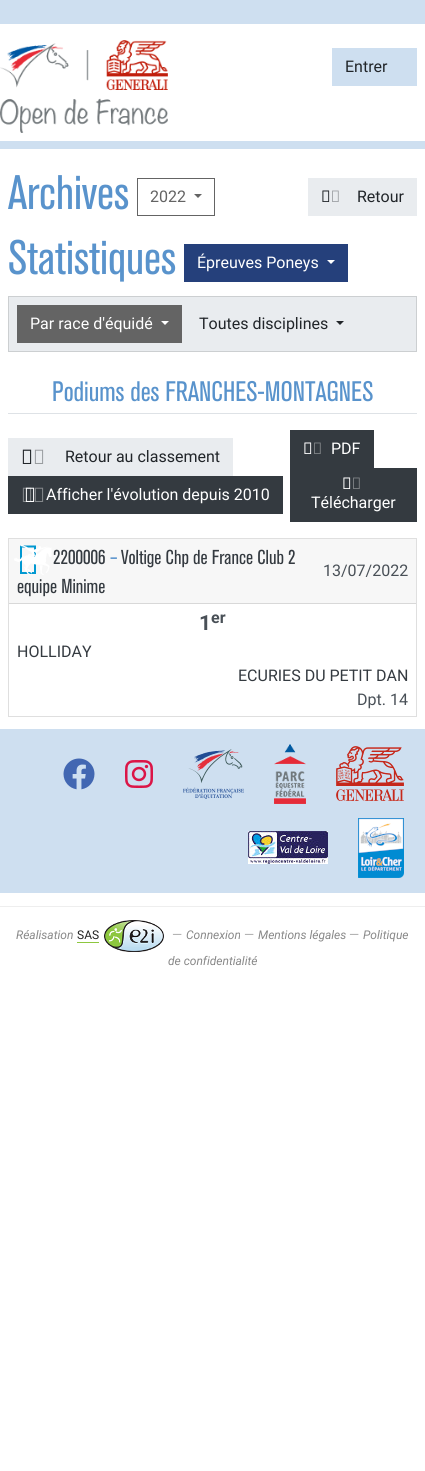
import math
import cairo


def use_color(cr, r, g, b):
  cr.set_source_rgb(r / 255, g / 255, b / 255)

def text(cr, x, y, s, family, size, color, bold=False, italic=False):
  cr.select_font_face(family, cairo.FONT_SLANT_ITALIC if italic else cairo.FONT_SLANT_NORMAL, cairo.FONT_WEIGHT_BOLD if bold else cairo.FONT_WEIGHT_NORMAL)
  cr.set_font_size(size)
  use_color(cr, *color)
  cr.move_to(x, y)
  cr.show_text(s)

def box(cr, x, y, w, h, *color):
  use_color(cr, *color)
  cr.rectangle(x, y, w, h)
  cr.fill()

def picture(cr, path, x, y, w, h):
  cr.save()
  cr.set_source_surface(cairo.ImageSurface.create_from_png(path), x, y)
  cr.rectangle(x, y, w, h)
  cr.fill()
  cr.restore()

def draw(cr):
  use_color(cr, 255, 255, 255)
  cr.paint()
  box(cr, 0, 0, 425, 24, 206, 223, 240)
  picture(cr, "img_01.png", 0, 40, 168, 93)
  box(cr, 332, 48, 85, 38, 206, 223, 240)
  box(cr, 0, 141, 425, 8, 206, 223, 240)
  cr.rectangle(137.5, 178.5, 77, 37)
  use_color(cr, 100, 100, 100)
  cr.set_line_width(1)
  cr.stroke()
  cr.new_path()
  cr.move_to(194, 194)
  cr.line_to(202, 194)
  cr.line_to(198, 198)
  cr.close_path()
  cr.fill()
  box(cr, 308, 178, 109, 38, 233, 236, 239)
  picture(cr, "img_02.png", 322, 190, 8, 12)
  picture(cr, "img_03.png", 322, 190, 17, 12)
  box(cr, 184, 244, 164, 38, 37, 64, 123)
  use_color(cr, 255, 255, 255)
  cr.new_path()
  cr.move_to(327, 260)
  cr.line_to(335, 260)
  cr.line_to(331, 264)
  cr.close_path()
  cr.fill()
  use_color(cr, 233, 236, 239)
  cr.rectangle(8.5, 296.5, 408, 55)
  cr.fill_preserve()
  use_color(cr, 204, 207, 209)
  cr.stroke()
  box(cr, 17, 305, 165, 38, 100, 100, 100)
  use_color(cr, 255, 255, 255)
  cr.new_path()
  cr.move_to(161, 321)
  cr.line_to(169, 321)
  cr.line_to(165, 325)
  cr.close_path()
  cr.fill()
  use_color(cr, 33, 37, 41)
  cr.new_path()
  cr.move_to(336, 321)
  cr.line_to(344, 321)
  cr.line_to(340, 325)
  cr.close_path()
  cr.fill()
  box(cr, 8, 413, 409, 1, 222, 226, 230)
  box(cr, 8, 438, 225, 38, 233, 236, 239)
  picture(cr, "img_04.png", 22, 449, 10, 15)
  picture(cr, "img_05.png", 22, 449, 22, 15)
  box(cr, 8, 476, 275, 38, 52, 58, 64)
  picture(cr, "img_07.png", 25, 487, 10, 15)
  picture(cr, "img_06.png", 22, 487, 22, 15)
  box(cr, 290, 430, 84, 38, 52, 58, 64)
  picture(cr, "img_08.png", 304, 442, 8, 12)
  picture(cr, "img_09.png", 304, 442, 17, 12)
  box(cr, 290, 468, 127, 54, 52, 58, 64)
  picture(cr, "img_08.png", 343, 477, 8, 12)
  picture(cr, "img_09.png", 343, 477, 17, 12)
  cr.rectangle(8.5, 538.5, 408, 178)
  use_color(cr, 223, 223, 223)
  cr.stroke()
  box(cr, 9, 539, 407, 64, 247, 247, 247)
  box(cr, 9, 603, 407, 1, 216, 216, 216)
  use_color(cr, 0, 152, 209)
  cr.new_path()
  cr.move_to(20, 574)
  cr.line_to(20, 545.5)
  cr.line_to(36, 545.5)
  cr.line_to(36, 574)
  cr.close_path()
  cr.move_to(22, 572)
  cr.line_to(34, 572)
  cr.line_to(34, 547.5)
  cr.line_to(22, 547.5)
  cr.close_path()
  cr.fill()
  picture(cr, "img_10.png", 14, 545, 38, 30)
  box(cr, 0, 729, 425, 164, 206, 223, 240)
  picture(cr, "img_11.png", 63, 758, 32, 32)
  picture(cr, "img_12.png", 125, 760, 28, 28)
  picture(cr, "img_13.png", 183, 749, 61, 50)
  picture(cr, "img_14.png", 274, 744, 32, 60)
  picture(cr, "img_15.png", 336, 746, 68, 55)
  picture(cr, "img_16.png", 248, 831, 80, 33)
  picture(cr, "img_17.png", 358, 818, 46, 60)
  box(cr, 0, 906, 425, 1, 238, 238, 238)
  box(cr, 77, 942, 22, 1, 141, 199, 63)
  picture(cr, "img_18.png", 104, 920, 60, 32)
  text(cr, 345, 72, "Entrer", "Roboto", 16, (33, 37, 41))
  text(cr, 8, 209, "Archives", "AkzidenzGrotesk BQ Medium", 48, (89, 147, 204))
  text(cr, 150, 202, "2022", "Roboto", 16, (100, 100, 100))
  text(cr, 357, 202, "Retour", "Roboto", 16, (33, 37, 41))
  text(cr, 8, 274, "Statistiques", "AkzidenzGrotesk BQ Medium", 48, (89, 147, 204))
  text(cr, 197, 268, "Épreuves Poneys", "Roboto", 16, (255, 255, 255))
  text(cr, 30, 329, "Par race d'équidé", "Roboto", 16, (255, 255, 255))
  text(cr, 199, 329, "Toutes disciplines", "Roboto", 16, (33, 37, 41))
  text(cr, 52, 401, "Podiums des FRANCHES-MONTAGNES", "AkzidenzGrotesk BQ Medium", 28, (89, 147, 204))
  text(cr, 65, 462, "Retour au classement", "Roboto", 16, (33, 37, 41))
  text(cr, 46, 500, "Afficher l'évolution depuis 2010", "Roboto", 16, (255, 255, 255))
  text(cr, 331, 454, "PDF", "Roboto", 16, (255, 255, 255))
  text(cr, 311, 508, "Télécharger", "Roboto", 16, (255, 255, 255))
  text(cr, 53, 564, "2200006", "AkzidenzGrotesk BQ Medium", 20, (52, 58, 64))
  text(cr, 110, 564, "–", "AkzidenzGrotesk BQ Medium", 20, (89, 147, 204))
  text(cr, 121, 564, "Voltige Chp de France Club 2", "AkzidenzGrotesk BQ Medium", 20, (52, 58, 64))
  text(cr, 17, 593, "equipe Minime", "AkzidenzGrotesk BQ Medium", 20, (52, 58, 64))
  text(cr, 323, 576, "13/07/2022", "Roboto", 16, (73, 80, 87))
  text(cr, 199, 630, "1", "Roboto", 21, (73, 80, 87), bold=True)
  text(cr, 211, 623, "er", "Roboto", 16, (73, 80, 87), bold=True)
  text(cr, 17, 657, "HOLLIDAY", "Roboto", 16, (52, 58, 64))
  text(cr, 238, 681, "ECURIES DU PETIT DAN", "Roboto", 16, (52, 58, 64))
  text(cr, 357, 705, "Dpt. 14", "Roboto", 16, (73, 80, 87))
  text(cr, 16, 939, "Réalisation", "Roboto", 12, (136, 136, 136), italic=True)
  text(cr, 77, 939, "SAS", "Roboto", 12, (34, 34, 34))
  text(cr, 172, 939, "—", "Roboto", 13, (170, 170, 170))
  text(cr, 186, 939, "Connexion", "Roboto", 12, (136, 136, 136), italic=True)
  text(cr, 244, 939, "—", "Roboto", 13, (170, 170, 170))
  text(cr, 258, 939, "Mentions légales", "Roboto", 12, (136, 136, 136), italic=True)
  text(cr, 349, 939, "—", "Roboto", 13, (170, 170, 170))
  text(cr, 363, 939, "Politique", "Roboto", 12, (136, 136, 136), italic=True)
  text(cr, 168, 965, "de confidentialité", "Roboto", 12, (136, 136, 136), italic=True)


surface = cairo.ImageSurface(cairo.FORMAT_RGB24, 425, 1471)
cr = cairo.Context(surface)
options = cairo.FontOptions()
options.set_hint_metrics(cairo.HINT_METRICS_OFF)
options.set_hint_style(cairo.HINT_STYLE_NONE)
cr.set_font_options(options)
cr.set_miter_limit(4)
draw(cr)
surface.write_to_png("out.png")
